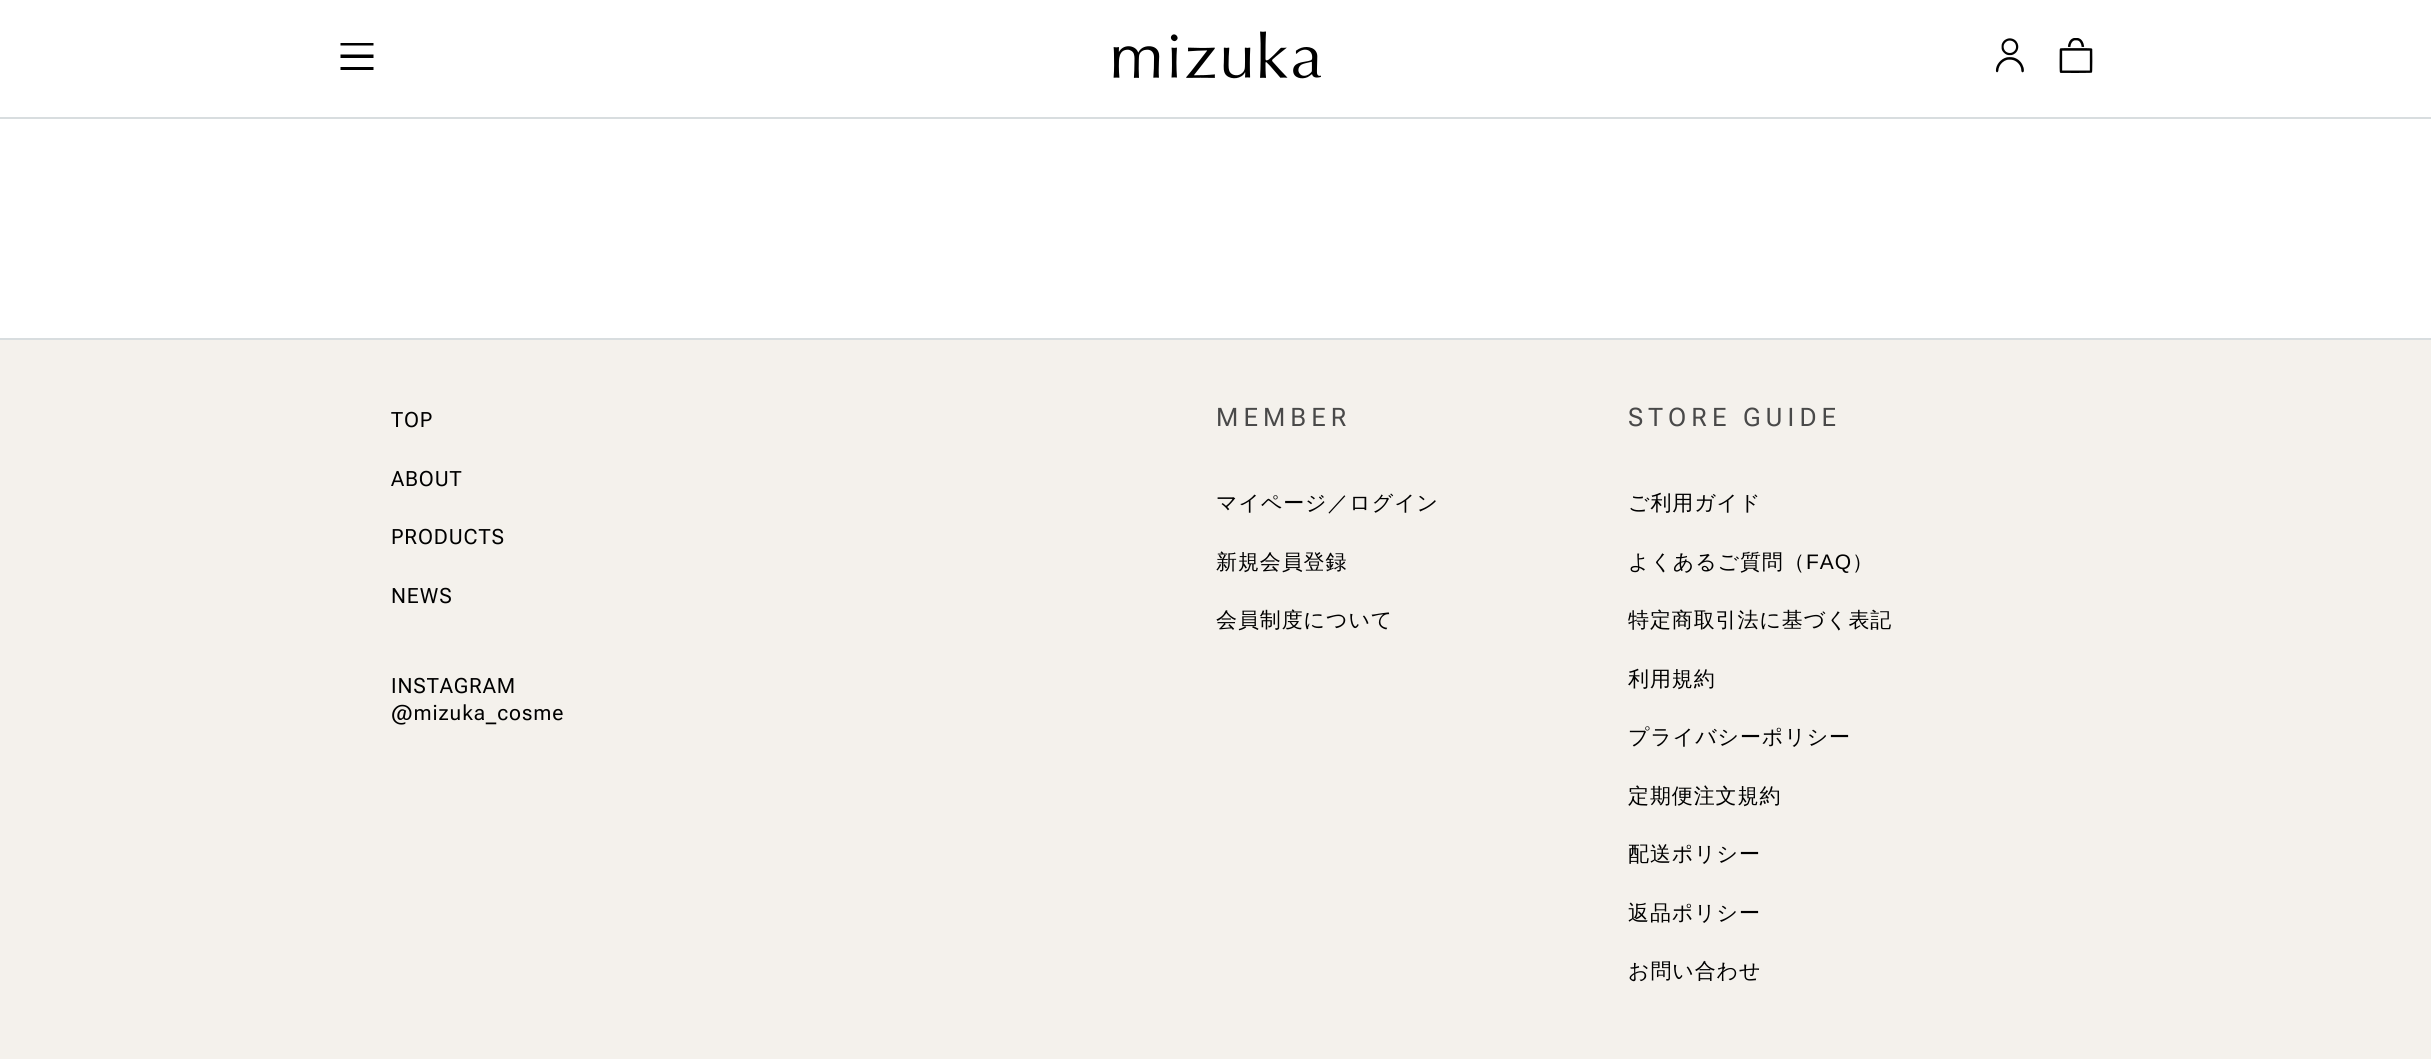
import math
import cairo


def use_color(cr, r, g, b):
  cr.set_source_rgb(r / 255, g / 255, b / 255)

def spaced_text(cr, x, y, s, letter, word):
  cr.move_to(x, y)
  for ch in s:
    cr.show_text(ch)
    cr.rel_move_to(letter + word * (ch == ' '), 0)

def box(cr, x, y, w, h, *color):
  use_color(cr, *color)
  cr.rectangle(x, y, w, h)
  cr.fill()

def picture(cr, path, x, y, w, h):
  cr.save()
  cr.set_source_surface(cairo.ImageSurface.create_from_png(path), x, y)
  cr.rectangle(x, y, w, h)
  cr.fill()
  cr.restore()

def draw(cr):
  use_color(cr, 255, 255, 255)
  cr.paint()
  box(cr, 0, 117, 2431, 2, 216, 221, 223)
  use_color(cr, 0, 0, 0)
  cr.new_path()
  cr.move_to(340.5, 43)
  cr.line_to(373.5, 43)
  cr.line_to(373.5, 45.5)
  cr.line_to(340.5, 45.5)
  cr.close_path()
  cr.move_to(340.5, 54.5)
  cr.line_to(373.5, 54.5)
  cr.line_to(373.5, 58)
  cr.line_to(340.5, 58)
  cr.close_path()
  cr.move_to(340.5, 67)
  cr.line_to(373.5, 67)
  cr.line_to(373.5, 70)
  cr.line_to(340.5, 70)
  cr.close_path()
  cr.fill()
  picture(cr, "img_01.png", 1113, 31, 208, 48)
  picture(cr, "img_02.png", 1995, 38, 29, 35)
  picture(cr, "img_03.png", 2059, 38, 34, 35)
  box(cr, 0, 340, 2431, 719, 244, 241, 236)
  box(cr, 0, 338, 2431, 2, 216, 221, 223)
  cr.select_font_face("Roboto Flex")
  cr.set_font_size(21)
  use_color(cr, 0, 0, 0)
  spaced_text(cr, 391, 427, "TOP", 0.9, 0)
  spaced_text(cr, 391, 486, "ABOUT", 0.9, 0)
  spaced_text(cr, 391, 544, "PRODUCTS", 0.9, 0)
  spaced_text(cr, 391, 603, "NEWS", 0.9, 0)
  spaced_text(cr, 391, 693, "INSTAGRAM", 0.9, 0)
  spaced_text(cr, 391, 720, "@mizuka_cosme", 0.9, 0)
  cr.set_font_size(25.5)
  use_color(cr, 73, 73, 73)
  spaced_text(cr, 1216, 426, "MEMBER", 5.1, 0)
  cr.select_font_face("WenQuanYi Zen Hei Medium")
  cr.set_font_size(21)
  use_color(cr, 0, 0, 0)
  spaced_text(cr, 1216, 510, "マイページ／ログイン", 0.9, 0)
  spaced_text(cr, 1216, 569, "新規会員登録", 0.9, 0)
  spaced_text(cr, 1216, 627, "会員制度について", 0.9, 0)
  cr.select_font_face("Roboto Flex")
  cr.set_font_size(25.5)
  use_color(cr, 73, 73, 73)
  spaced_text(cr, 1628, 426, "STORE GUIDE", 5.1, 0)
  cr.select_font_face("WenQuanYi Zen Hei Medium")
  cr.set_font_size(21)
  use_color(cr, 0, 0, 0)
  spaced_text(cr, 1628, 510, "ご利用ガイド", 0.9, 0)
  spaced_text(cr, 1628, 569, "よくあるご質問（", 0.9, 0)
  cr.select_font_face("Liberation Sans")
  spaced_text(cr, 1806, 569, "FAQ", 0.9, 0)
  cr.select_font_face("WenQuanYi Zen Hei Medium")
  spaced_text(cr, 1852, 569, "）", 0.9, 0)
  spaced_text(cr, 1628, 627, "特定商取引法に基づく表記", 0.9, 0)
  spaced_text(cr, 1628, 686, "利用規約", 0.9, 0)
  spaced_text(cr, 1628, 744, "プライバシーポリシー", 0.9, 0)
  spaced_text(cr, 1628, 803, "定期便注文規約", 0.9, 0)
  spaced_text(cr, 1628, 861, "配送ポリシー", 0.9, 0)
  spaced_text(cr, 1628, 920, "返品ポリシー", 0.9, 0)
  spaced_text(cr, 1628, 978, "お問い合わせ", 0.9, 0)


surface = cairo.ImageSurface(cairo.FORMAT_RGB24, 2431, 1059)
cr = cairo.Context(surface)
options = cairo.FontOptions()
options.set_hint_metrics(cairo.HINT_METRICS_OFF)
options.set_hint_style(cairo.HINT_STYLE_NONE)
cr.set_font_options(options)
cr.set_miter_limit(4)
draw(cr)
surface.write_to_png("out.png")
